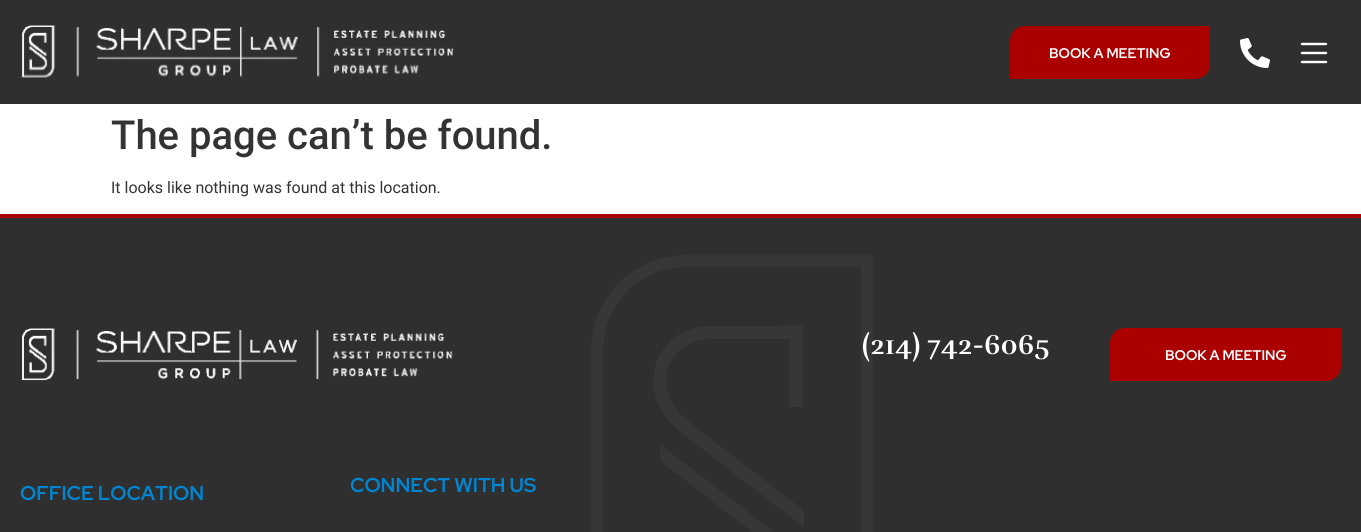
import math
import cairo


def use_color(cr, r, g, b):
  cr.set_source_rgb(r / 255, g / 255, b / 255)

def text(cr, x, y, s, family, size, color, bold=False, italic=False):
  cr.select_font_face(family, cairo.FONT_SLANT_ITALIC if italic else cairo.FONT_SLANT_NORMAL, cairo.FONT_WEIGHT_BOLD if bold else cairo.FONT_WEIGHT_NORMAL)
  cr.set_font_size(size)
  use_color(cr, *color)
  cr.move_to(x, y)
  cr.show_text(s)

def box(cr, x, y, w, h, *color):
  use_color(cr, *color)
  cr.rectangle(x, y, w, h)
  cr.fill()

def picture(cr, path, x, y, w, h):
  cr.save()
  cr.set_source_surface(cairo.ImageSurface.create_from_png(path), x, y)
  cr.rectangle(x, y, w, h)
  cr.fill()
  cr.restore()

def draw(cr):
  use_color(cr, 255, 255, 255)
  cr.paint()
  box(cr, 0, 0, 1361, 104, 47, 47, 47)
  picture(cr, "img_01.png", 21, 25, 433, 53)
  use_color(cr, 170, 0, 0)
  cr.new_path()
  cr.move_to(1025, 26)
  cr.line_to(1210, 26)
  cr.line_to(1210, 64)
  cr.curve_to(1210, 72.5, 1203.5, 79, 1195, 79)
  cr.line_to(1010, 79)
  cr.line_to(1010, 41)
  cr.curve_to(1010, 32.5, 1016.5, 26, 1025, 26)
  cr.close_path()
  cr.fill()
  picture(cr, "img_02.png", 1240, 38, 30, 30)
  picture(cr, "img_03.png", 1300, 42, 28, 22)
  box(cr, 0, 218, 1361, 314, 47, 47, 47)
  box(cr, 0, 214, 1361, 4, 170, 0, 0)
  cr.new_path()
  cr.move_to(1125, 328)
  cr.line_to(1341, 328)
  cr.line_to(1341, 366)
  cr.curve_to(1341, 374.5, 1334.5, 381, 1326, 381)
  cr.line_to(1110, 381)
  cr.line_to(1110, 343)
  cr.curve_to(1110, 334.5, 1116.5, 328, 1125, 328)
  cr.close_path()
  cr.fill()
  picture(cr, "img_05.png", 21, 328, 432, 53)
  text(cr, 1049, 58, "BOOK A MEETING", "Red Hat Display", 14, (255, 255, 255), bold=True)
  text(cr, 111, 149, "The page can’t be found.", "Roboto Medium", 40, (51, 51, 51))
  text(cr, 111, 193, "It looks like nothing was found at this location.", "Roboto", 16, (51, 51, 51))
  text(cr, 862, 354, "(214) 742-6065", "Rufina", 28, (255, 255, 255), bold=True)
  picture(cr, "img_04.png", 591, 255, 282, 277)
  text(cr, 1165, 360, "BOOK A MEETING", "Red Hat Display", 14, (255, 255, 255), bold=True)
  text(cr, 20, 500, "OFFICE LOCATION", "Red Hat Display", 20, (0, 133, 209), bold=True)
  text(cr, 350, 492, "CONNECT WITH US", "Red Hat Display", 20, (0, 133, 209), bold=True)


surface = cairo.ImageSurface(cairo.FORMAT_RGB24, 1361, 532)
cr = cairo.Context(surface)
options = cairo.FontOptions()
options.set_hint_metrics(cairo.HINT_METRICS_OFF)
options.set_hint_style(cairo.HINT_STYLE_NONE)
cr.set_font_options(options)
cr.set_miter_limit(4)
draw(cr)
surface.write_to_png("out.png")
